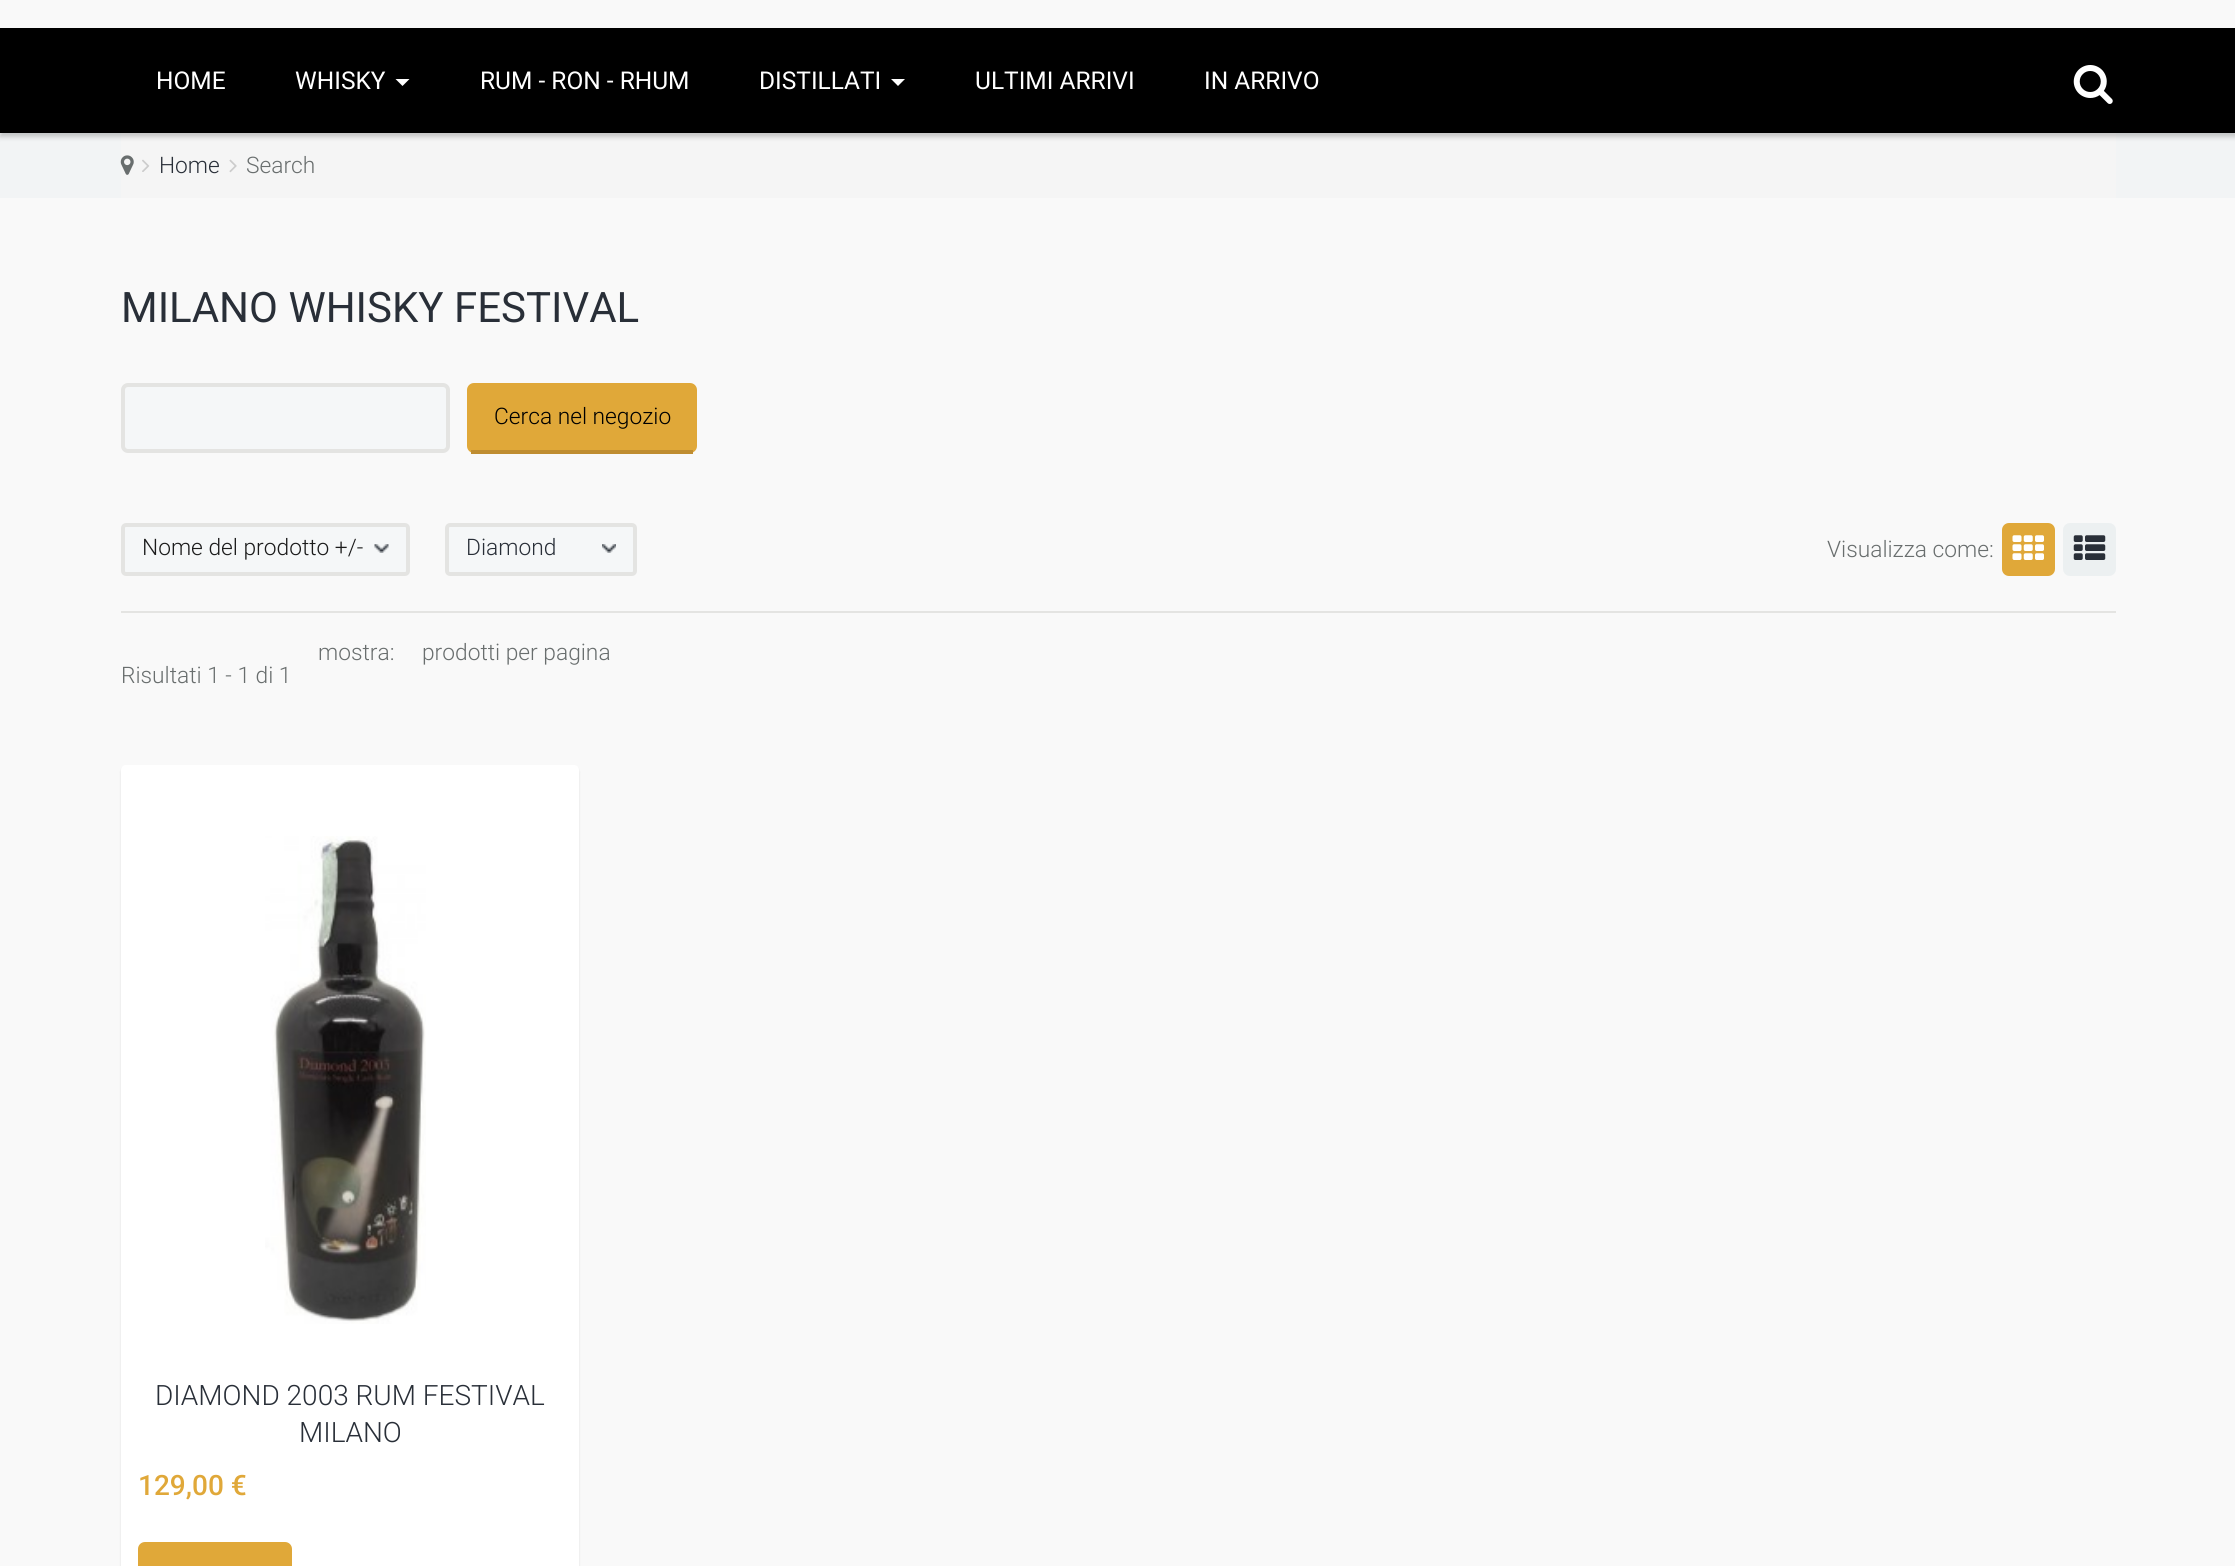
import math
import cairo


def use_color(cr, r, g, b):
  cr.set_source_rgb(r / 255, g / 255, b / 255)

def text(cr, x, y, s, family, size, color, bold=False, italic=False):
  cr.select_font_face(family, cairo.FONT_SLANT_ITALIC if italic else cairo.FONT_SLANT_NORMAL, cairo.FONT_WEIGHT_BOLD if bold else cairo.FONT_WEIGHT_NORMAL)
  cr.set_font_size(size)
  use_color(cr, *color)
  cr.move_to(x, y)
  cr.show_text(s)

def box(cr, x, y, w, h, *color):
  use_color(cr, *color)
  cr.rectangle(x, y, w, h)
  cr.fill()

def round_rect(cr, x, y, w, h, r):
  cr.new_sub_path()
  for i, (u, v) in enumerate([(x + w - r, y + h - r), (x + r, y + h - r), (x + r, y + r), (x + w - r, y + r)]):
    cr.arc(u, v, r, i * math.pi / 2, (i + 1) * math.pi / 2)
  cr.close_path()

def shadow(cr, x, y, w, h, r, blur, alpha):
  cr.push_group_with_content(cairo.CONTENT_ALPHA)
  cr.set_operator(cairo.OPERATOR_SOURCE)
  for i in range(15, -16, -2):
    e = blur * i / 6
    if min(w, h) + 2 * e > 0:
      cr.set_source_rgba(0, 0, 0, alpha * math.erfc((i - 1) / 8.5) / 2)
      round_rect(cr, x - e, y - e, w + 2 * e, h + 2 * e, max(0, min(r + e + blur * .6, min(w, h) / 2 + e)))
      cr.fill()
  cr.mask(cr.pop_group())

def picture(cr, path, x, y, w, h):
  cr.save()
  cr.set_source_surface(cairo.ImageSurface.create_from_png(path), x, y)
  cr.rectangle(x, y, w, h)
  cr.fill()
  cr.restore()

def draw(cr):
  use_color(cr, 242, 244, 245)
  cr.paint()
  box(cr, 121, 133, 1995, 65, 245, 245, 245)
  use_color(cr, 0, 0, 0)
  shadow(cr, 0, 32, 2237, 105, 0, 2.5, 0.2)
  box(cr, 0, 0, 2235, 28, 249, 249, 249)
  box(cr, 0, 28, 2235, 105, 0, 0, 0)
  use_color(cr, 255, 255, 255)
  cr.new_path()
  cr.move_to(395.5, 79)
  cr.line_to(409.5, 79)
  cr.line_to(402.5, 86)
  cr.close_path()
  cr.fill()
  cr.new_path()
  cr.move_to(891, 79)
  cr.line_to(905, 79)
  cr.line_to(898, 86)
  cr.close_path()
  cr.fill()
  picture(cr, "img_01.png", 2073, 65, 40, 39)
  picture(cr, "img_02.png", 120, 155, 14, 20)
  picture(cr, "img_03.png", 142, 159, 8, 13)
  picture(cr, "img_04.png", 229, 159, 8, 14)
  box(cr, 0, 198, 2235, 1368, 249, 249, 249)
  use_color(cr, 245, 247, 248)
  round_rect(cr, 123, 385, 325, 66, 5)
  cr.fill_preserve()
  use_color(cr, 228, 228, 226)
  cr.set_line_width(4)
  cr.stroke()
  use_color(cr, 224, 168, 57)
  round_rect(cr, 467, 383, 230, 70, 7)
  cr.fill()
  box(cr, 471, 450, 222, 4, 191, 141, 49)
  box(cr, 121, 611, 1995, 2, 228, 228, 226)
  use_color(cr, 245, 247, 248)
  round_rect(cr, 123, 525, 285, 49, 3)
  cr.fill_preserve()
  use_color(cr, 228, 228, 226)
  cr.stroke()
  picture(cr, "img_05.png", 374, 544, 15, 9)
  use_color(cr, 245, 247, 248)
  round_rect(cr, 447, 525, 188, 49, 3)
  cr.fill_preserve()
  use_color(cr, 228, 228, 226)
  cr.stroke()
  picture(cr, "img_06.png", 602, 544, 14, 9)
  use_color(cr, 224, 168, 57)
  round_rect(cr, 2002, 523, 53, 53, 7)
  cr.fill()
  picture(cr, "img_07.png", 2012, 535, 32, 25)
  use_color(cr, 236, 240, 241)
  round_rect(cr, 2063, 523, 53, 53, 7)
  cr.fill()
  picture(cr, "img_08.png", 2073, 535, 33, 25)
  use_color(cr, 0, 0, 0)
  shadow(cr, 121, 767, 458, 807, 5, 1, 0.1)
  use_color(cr, 255, 255, 255)
  round_rect(cr, 121, 765, 458, 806, 5)
  cr.fill()
  picture(cr, "img_09.png", 265, 836, 161, 488)
  use_color(cr, 224, 168, 57)
  round_rect(cr, 138, 1542, 154, 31, 7)
  cr.fill()
  text(cr, 156, 89, "HOME", "Roboto", 24.5, (255, 255, 255))
  text(cr, 295, 89, "WHISKY", "Roboto", 24.5, (255, 255, 255))
  text(cr, 480, 89, "RUM - RON - RHUM", "Roboto", 24.5, (255, 255, 255))
  text(cr, 759, 89, "DISTILLATI", "Roboto", 24.5, (255, 255, 255))
  text(cr, 975, 89, "ULTIMI ARRIVI", "Roboto", 24.5, (255, 255, 255))
  text(cr, 1204, 89, "IN ARRIVO", "Roboto", 24.5, (255, 255, 255))
  text(cr, 159, 173, "Home", "Roboto Light", 22.75, (41, 47, 56))
  text(cr, 246, 173, "Search", "Roboto Light", 22.75, (105, 110, 110))
  text(cr, 121, 322, "MILANO WHISKY FESTIVAL", "Roboto", 42, (41, 47, 56))
  text(cr, 494, 424, "Cerca nel negozio", "Roboto Light", 22.75, (0, 0, 0))
  text(cr, 142, 555, "Nome del prodotto +/-", "Roboto Light", 22.75, (27, 27, 27))
  text(cr, 466, 555, "Diamond", "Roboto Light", 22.75, (41, 47, 56))
  text(cr, 1827, 557, "Visualizza come:", "Roboto Light", 22.75, (105, 110, 110))
  text(cr, 318, 660, "mostra:", "Roboto Light", 22.75, (105, 110, 110))
  text(cr, 422, 660, "prodotti per pagina", "Roboto Light", 22.75, (105, 110, 110))
  text(cr, 121, 683, "Risultati 1 - 1 di 1", "Roboto Light", 22.75, (105, 110, 110))
  text(cr, 155, 1405, "DIAMOND 2003 RUM FESTIVAL", "Roboto Light", 28, (41, 47, 56))
  text(cr, 299, 1442, "MILANO", "Roboto Light", 28, (41, 47, 56))
  text(cr, 138, 1495, "129,00 €", "Roboto Medium", 28, (224, 168, 57))


surface = cairo.ImageSurface(cairo.FORMAT_RGB24, 2235, 1566)
cr = cairo.Context(surface)
options = cairo.FontOptions()
options.set_hint_metrics(cairo.HINT_METRICS_OFF)
options.set_hint_style(cairo.HINT_STYLE_NONE)
cr.set_font_options(options)
cr.set_miter_limit(4)
draw(cr)
surface.write_to_png("out.png")
